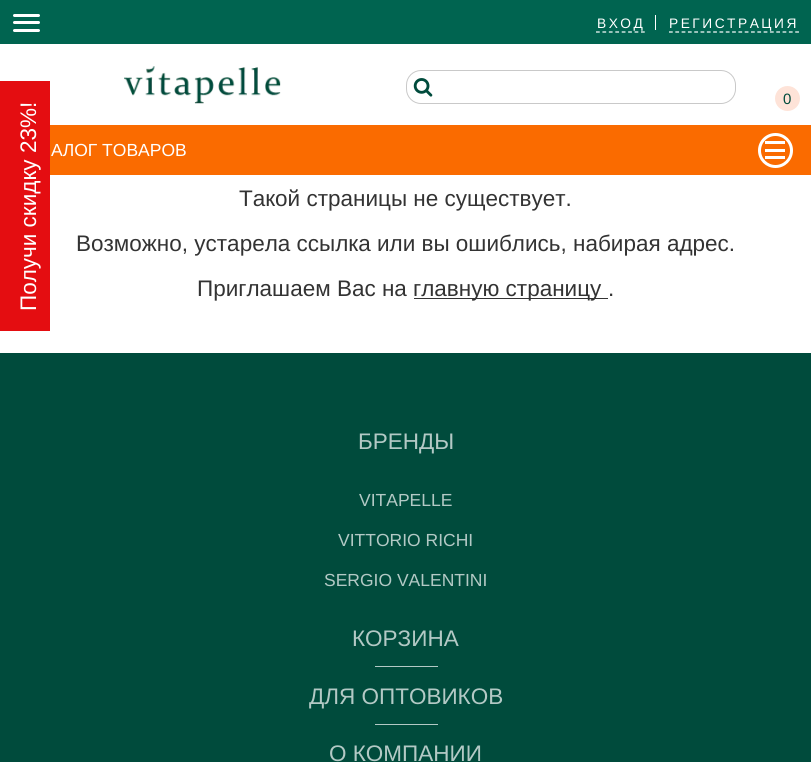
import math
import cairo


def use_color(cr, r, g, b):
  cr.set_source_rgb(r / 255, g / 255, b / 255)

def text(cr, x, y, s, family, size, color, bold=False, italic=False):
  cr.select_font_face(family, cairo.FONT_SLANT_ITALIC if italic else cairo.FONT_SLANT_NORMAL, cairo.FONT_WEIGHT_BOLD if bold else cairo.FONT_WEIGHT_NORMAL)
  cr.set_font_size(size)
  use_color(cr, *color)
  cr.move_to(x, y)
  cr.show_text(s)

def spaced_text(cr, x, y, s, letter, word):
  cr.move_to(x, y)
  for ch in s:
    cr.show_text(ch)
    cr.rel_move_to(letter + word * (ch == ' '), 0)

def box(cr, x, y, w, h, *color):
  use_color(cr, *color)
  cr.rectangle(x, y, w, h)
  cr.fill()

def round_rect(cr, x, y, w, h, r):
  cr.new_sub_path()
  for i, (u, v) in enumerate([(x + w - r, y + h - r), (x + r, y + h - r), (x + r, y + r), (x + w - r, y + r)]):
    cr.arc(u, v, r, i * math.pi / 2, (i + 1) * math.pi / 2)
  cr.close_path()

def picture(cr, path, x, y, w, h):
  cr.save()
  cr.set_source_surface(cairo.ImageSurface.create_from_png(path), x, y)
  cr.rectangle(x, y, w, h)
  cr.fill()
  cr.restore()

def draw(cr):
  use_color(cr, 255, 255, 255)
  cr.paint()
  box(cr, 0, 81, 50, 250, 228, 13, 17)
  box(cr, 0, 0, 811, 44, 0, 100, 80)
  use_color(cr, 255, 255, 255)
  round_rect(cr, 13, 14, 27, 3, 1.5)
  cr.fill()
  round_rect(cr, 13, 21, 27, 3, 1.5)
  cr.fill()
  round_rect(cr, 13, 29, 27, 3, 1.5)
  cr.fill()
  cr.new_path()
  cr.move_to(596, 32)
  cr.line_to(645, 32)
  cr.set_line_width(1.2)
  cr.set_dash([3.75, 2.68])
  cr.stroke()
  box(cr, 655, 15, 1, 15, 255, 255, 255)
  cr.new_path()
  cr.move_to(669, 32)
  cr.line_to(799, 32)
  cr.set_dash([3.75, 2.56])
  cr.stroke()
  picture(cr, "img_01.png", 124, 66, 157, 38)
  round_rect(cr, 406.5, 70.5, 329, 33, 14.5)
  use_color(cr, 201, 201, 201)
  cr.set_line_width(1)
  cr.set_dash([])
  cr.stroke()
  picture(cr, "img_02.png", 413, 78, 20, 19)
  use_color(cr, 254, 227, 216)
  cr.arc(787.5, 98.5, 12.5, 0, 2 * math.pi)
  cr.fill()
  box(cr, 50, 125, 761, 50, 250, 107, 0)
  cr.arc(775.5, 150.5, 16, 0, 2 * math.pi)
  use_color(cr, 255, 255, 255)
  cr.set_line_width(3)
  cr.stroke()
  box(cr, 765, 141, 20, 3, 255, 255, 255)
  box(cr, 765, 149, 20, 3, 255, 255, 255)
  box(cr, 765, 156, 20, 3, 255, 255, 255)
  box(cr, 414, 298, 194, 1, 51, 51, 51)
  box(cr, 0, 353, 811, 409, 0, 75, 60)
  box(cr, 375, 666, 63, 1, 179, 201, 197)
  box(cr, 375, 724, 63, 1, 179, 201, 197)
  cr.save()
  cr.translate(36, 108)
  cr.rotate(-90 * math.pi / 180)
  text(cr, 0, 0, "!", "Liberation Sans", 22.5, (255, 255, 255))
  cr.restore()
  cr.save()
  cr.translate(36, 153)
  cr.rotate(-90 * math.pi / 180)
  text(cr, 0, 0, "23%", "Liberation Sans", 22.5, (255, 255, 255))
  cr.restore()
  cr.save()
  cr.translate(36, 311)
  cr.rotate(-90 * math.pi / 180)
  text(cr, 0, 0, "Получи скидку", "Liberation Sans", 22.5, (255, 255, 255))
  cr.restore()
  cr.select_font_face("Liberation Sans")
  cr.set_font_size(13.75)
  use_color(cr, 255, 255, 255)
  spaced_text(cr, 597, 28, "ВХОД", 2.5, 0)
  spaced_text(cr, 669, 28, "РЕГИСТРАЦИЯ", 2.5, 0)
  text(cr, 783, 104, "0", "Liberation Sans", 15, (0, 75, 60))
  text(cr, 51, 156, "АЛОГ ТОВАРОВ", "Liberation Sans", 17.5, (255, 255, 255))
  text(cr, 239, 206, "Такой страницы не существует.", "Liberation Sans", 22.5, (51, 51, 51))
  text(cr, 76, 251, "Возможно, устарела ссылка или вы ошиблись, набирая адрес.", "Liberation Sans", 22.5, (51, 51, 51))
  text(cr, 197, 296, "Приглашаем Вас на", "Liberation Sans", 22.5, (51, 51, 51))
  text(cr, 413, 296, "главную страницу", "Liberation Sans", 22.5, (51, 51, 51))
  text(cr, 608, 296, ".", "Liberation Sans", 22.5, (51, 51, 51))
  text(cr, 358, 449, "БРЕНДЫ", "Liberation Sans", 22.5, (179, 201, 197))
  text(cr, 359, 506, "VITAPELLE", "Liberation Sans", 17.5, (179, 201, 197))
  text(cr, 338, 546, "VITTORIO RICHI", "Liberation Sans", 17.5, (179, 201, 197))
  text(cr, 324, 586, "SERGIO VALENTINI", "Liberation Sans", 17.5, (179, 201, 197))
  text(cr, 352, 646, "КОРЗИНА", "Liberation Sans", 22.5, (179, 201, 197))
  text(cr, 309, 704, "ДЛЯ ОПТОВИКОВ", "Liberation Sans", 22.5, (179, 201, 197))
  text(cr, 329, 761, "О КОМПАНИИ", "Liberation Sans", 22.5, (179, 201, 197))


surface = cairo.ImageSurface(cairo.FORMAT_RGB24, 811, 762)
cr = cairo.Context(surface)
options = cairo.FontOptions()
options.set_hint_metrics(cairo.HINT_METRICS_OFF)
options.set_hint_style(cairo.HINT_STYLE_NONE)
cr.set_font_options(options)
cr.set_miter_limit(4)
draw(cr)
surface.write_to_png("out.png")
